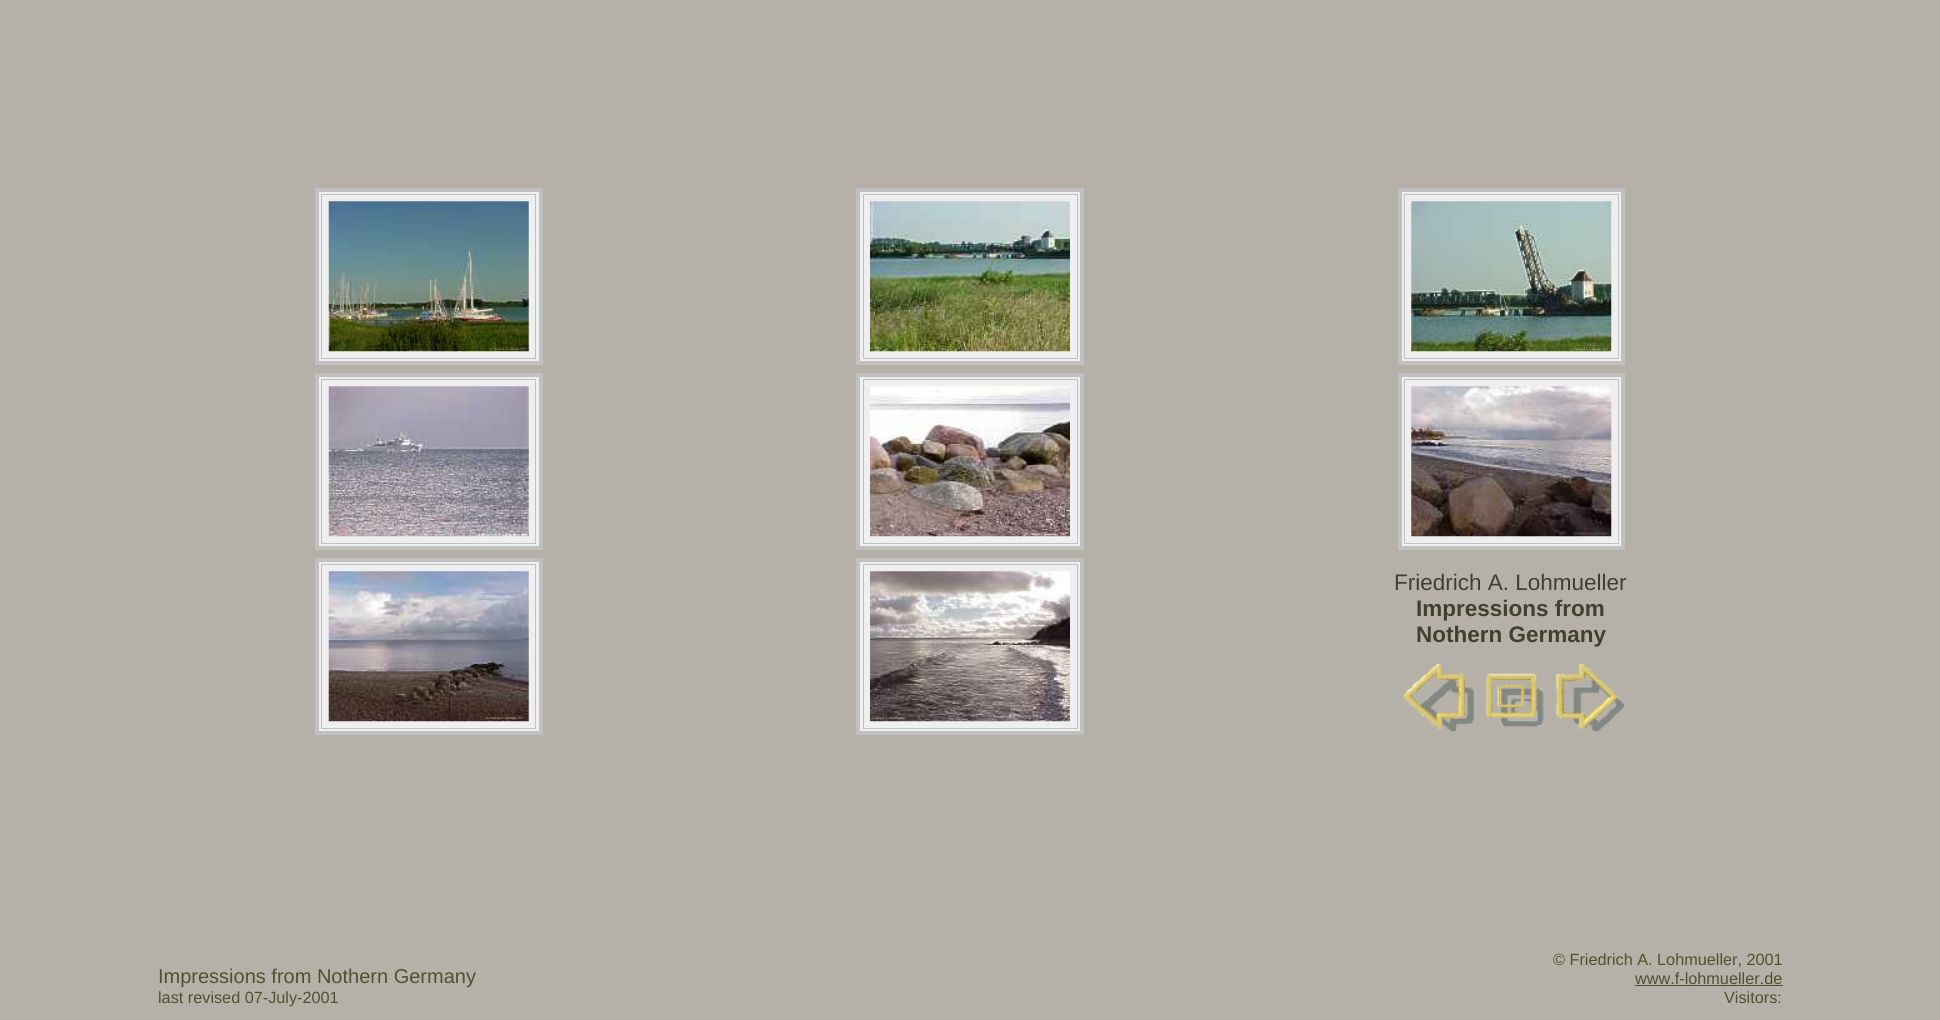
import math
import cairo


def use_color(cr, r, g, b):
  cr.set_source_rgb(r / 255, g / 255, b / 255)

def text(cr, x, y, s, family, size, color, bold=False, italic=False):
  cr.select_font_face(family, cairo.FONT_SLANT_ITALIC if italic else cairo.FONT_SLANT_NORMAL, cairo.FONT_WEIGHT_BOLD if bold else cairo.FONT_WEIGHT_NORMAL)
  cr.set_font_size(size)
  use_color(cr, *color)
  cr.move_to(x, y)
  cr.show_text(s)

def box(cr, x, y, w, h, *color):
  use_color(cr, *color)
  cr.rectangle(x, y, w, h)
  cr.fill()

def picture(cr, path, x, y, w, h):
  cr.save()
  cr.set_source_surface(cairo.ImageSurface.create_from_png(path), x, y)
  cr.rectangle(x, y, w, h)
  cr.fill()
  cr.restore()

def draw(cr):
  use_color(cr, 182, 177, 168)
  cr.paint()
  use_color(cr, 239, 239, 239)
  cr.rectangle(317, 190, 224, 173)
  cr.fill_preserve()
  use_color(cr, 192, 192, 192)
  cr.set_line_width(4)
  cr.stroke()
  cr.rectangle(321.5, 194.5, 214, 164)
  cr.set_line_width(1)
  cr.stroke()
  picture(cr, "img_01.png", 328, 201, 201, 151)
  use_color(cr, 239, 239, 239)
  cr.rectangle(858, 190, 224, 173)
  cr.fill_preserve()
  use_color(cr, 192, 192, 192)
  cr.set_line_width(4)
  cr.stroke()
  cr.rectangle(863.5, 194.5, 214, 164)
  cr.set_line_width(1)
  cr.stroke()
  picture(cr, "img_02.png", 870, 201, 200, 151)
  use_color(cr, 239, 239, 239)
  cr.rectangle(1400, 190, 223, 173)
  cr.fill_preserve()
  use_color(cr, 192, 192, 192)
  cr.set_line_width(4)
  cr.stroke()
  cr.rectangle(1404.5, 194.5, 214, 164)
  cr.set_line_width(1)
  cr.stroke()
  picture(cr, "img_03.png", 1411, 201, 201, 151)
  use_color(cr, 239, 239, 239)
  cr.rectangle(317, 375, 224, 173)
  cr.fill_preserve()
  use_color(cr, 192, 192, 192)
  cr.set_line_width(4)
  cr.stroke()
  cr.rectangle(321.5, 379.5, 214, 164)
  cr.set_line_width(1)
  cr.stroke()
  picture(cr, "img_04.png", 328, 386, 201, 151)
  use_color(cr, 239, 239, 239)
  cr.rectangle(858, 375, 224, 173)
  cr.fill_preserve()
  use_color(cr, 192, 192, 192)
  cr.set_line_width(4)
  cr.stroke()
  cr.rectangle(863.5, 379.5, 214, 164)
  cr.set_line_width(1)
  cr.stroke()
  picture(cr, "img_05.png", 870, 386, 200, 151)
  use_color(cr, 239, 239, 239)
  cr.rectangle(1400, 375, 223, 173)
  cr.fill_preserve()
  use_color(cr, 192, 192, 192)
  cr.set_line_width(4)
  cr.stroke()
  cr.rectangle(1404.5, 379.5, 214, 164)
  cr.set_line_width(1)
  cr.stroke()
  picture(cr, "img_06.png", 1411, 386, 201, 151)
  use_color(cr, 239, 239, 239)
  cr.rectangle(317, 560, 224, 173)
  cr.fill_preserve()
  use_color(cr, 192, 192, 192)
  cr.set_line_width(4)
  cr.stroke()
  cr.rectangle(321.5, 564.5, 214, 164)
  cr.set_line_width(1)
  cr.stroke()
  picture(cr, "img_07.png", 328, 571, 201, 151)
  use_color(cr, 239, 239, 239)
  cr.rectangle(858, 560, 224, 173)
  cr.fill_preserve()
  use_color(cr, 192, 192, 192)
  cr.set_line_width(4)
  cr.stroke()
  cr.rectangle(863.5, 564.5, 214, 164)
  cr.set_line_width(1)
  cr.stroke()
  picture(cr, "img_08.png", 870, 571, 200, 151)
  picture(cr, "img_09.png", 1403, 663, 71, 70)
  picture(cr, "img_10.png", 1486, 673, 58, 54)
  picture(cr, "img_11.png", 1556, 663, 68, 70)
  box(cr, 1635, 985, 148, 1, 80, 80, 48)
  text(cr, 1394, 590, "Friedrich A. Lohmueller", "Liberation Sans", 22.5, (64, 64, 48))
  text(cr, 1416, 616, "Impressions from", "Liberation Sans", 22.5, (64, 64, 48), bold=True)
  text(cr, 1416, 642, "Nothern Germany", "Liberation Sans", 22.5, (64, 64, 48), bold=True)
  text(cr, 158, 983, "Impressions from Nothern Germany", "Liberation Sans", 20, (80, 80, 48))
  text(cr, 158, 1003, "last revised 07-July-2001", "Liberation Sans", 16.25, (80, 80, 48))
  text(cr, 1553, 965, "© Friedrich A. Lohmueller, 2001", "Liberation Sans", 16.25, (80, 80, 48))
  text(cr, 1635, 984, "www.f-lohmueller.de", "Liberation Sans", 16.25, (80, 80, 48))
  text(cr, 1724, 1003, "Visitors:", "Liberation Sans", 16.25, (80, 80, 48))


surface = cairo.ImageSurface(cairo.FORMAT_RGB24, 1940, 1020)
cr = cairo.Context(surface)
options = cairo.FontOptions()
options.set_hint_metrics(cairo.HINT_METRICS_OFF)
options.set_hint_style(cairo.HINT_STYLE_NONE)
cr.set_font_options(options)
cr.set_miter_limit(4)
draw(cr)
surface.write_to_png("out.png")
